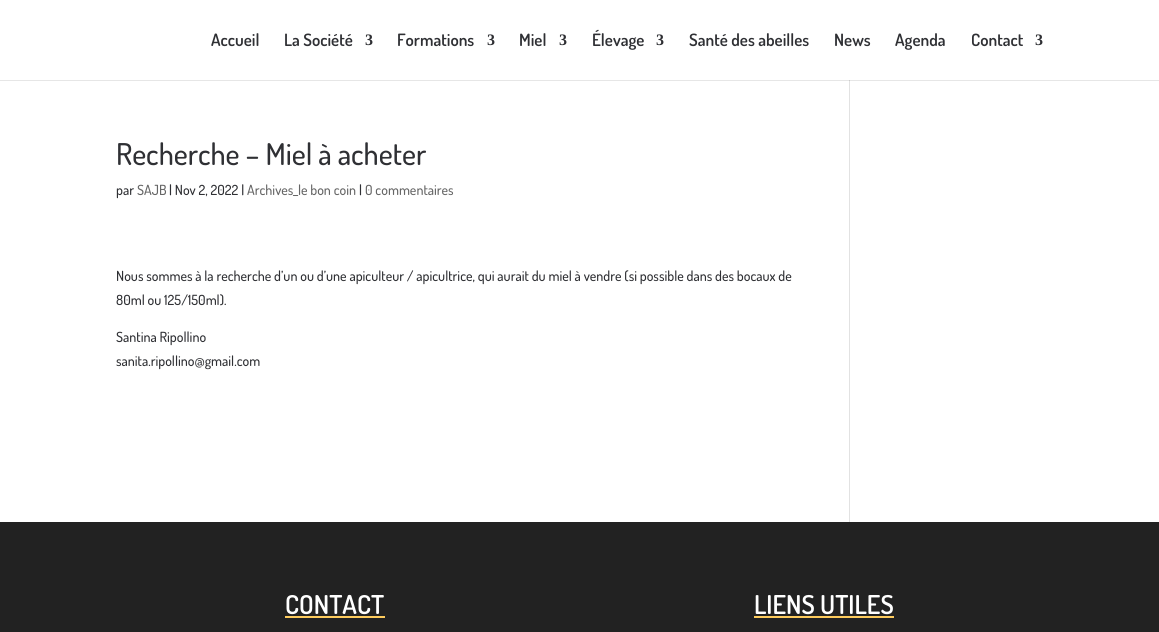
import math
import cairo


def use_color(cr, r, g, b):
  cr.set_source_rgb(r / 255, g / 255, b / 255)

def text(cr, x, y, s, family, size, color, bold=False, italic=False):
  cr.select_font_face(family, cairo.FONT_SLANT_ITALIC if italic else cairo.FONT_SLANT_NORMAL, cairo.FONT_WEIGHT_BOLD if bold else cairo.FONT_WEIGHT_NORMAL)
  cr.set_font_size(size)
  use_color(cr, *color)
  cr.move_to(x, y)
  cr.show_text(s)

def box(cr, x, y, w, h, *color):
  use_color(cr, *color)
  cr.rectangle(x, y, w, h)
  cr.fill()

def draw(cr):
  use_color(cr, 255, 255, 255)
  cr.paint()
  box(cr, 0, 80, 1159, 1, 230, 230, 230)
  box(cr, 849, 80, 1, 442, 226, 226, 226)
  box(cr, 849, 80, 1, 1, 203, 203, 203)
  box(cr, 0, 522, 1159, 110, 34, 34, 34)
  box(cr, 285, 616, 100, 2, 253, 203, 93)
  box(cr, 754, 616, 140, 2, 253, 203, 93)
  text(cr, 211, 46, "Accueil", "Dosis SemiBold", 17, (47, 48, 52))
  text(cr, 284, 46, "La Société", "Dosis SemiBold", 17, (47, 48, 52))
  text(cr, 365, 45, "3", "Liberation Serif", 16, (47, 48, 52), bold=True)
  text(cr, 397, 46, "Formations", "Dosis SemiBold", 17, (47, 48, 52))
  text(cr, 487, 45, "3", "Liberation Serif", 16, (47, 48, 52), bold=True)
  text(cr, 519, 46, "Miel", "Dosis SemiBold", 17, (47, 48, 52))
  text(cr, 559, 45, "3", "Liberation Serif", 16, (47, 48, 52), bold=True)
  text(cr, 592, 46, "Élevage", "Dosis SemiBold", 17, (47, 48, 52))
  text(cr, 656, 45, "3", "Liberation Serif", 16, (47, 48, 52), bold=True)
  text(cr, 689, 46, "Santé des abeilles", "Dosis SemiBold", 17, (47, 48, 52))
  text(cr, 834, 46, "News", "Dosis SemiBold", 17, (47, 48, 52))
  text(cr, 895, 46, "Agenda", "Dosis SemiBold", 17, (47, 48, 52))
  text(cr, 971, 46, "Contact", "Dosis SemiBold", 17, (47, 48, 52))
  text(cr, 1035, 45, "3", "Liberation Serif", 16, (47, 48, 52), bold=True)
  text(cr, 116, 165, "Recherche – Miel à acheter", "Dosis Medium", 30, (47, 48, 52))
  text(cr, 116, 195, "par", "Dosis Medium", 14, (47, 48, 52))
  text(cr, 137, 195, "SAJB", "Dosis Medium", 14, (102, 102, 102))
  text(cr, 169, 195, "| Nov 2, 2022 |", "Dosis Medium", 14, (47, 48, 52))
  text(cr, 247, 195, "Archives_le bon coin", "Dosis Medium", 14, (102, 102, 102))
  text(cr, 359, 195, "|", "Dosis Medium", 14, (47, 48, 52))
  text(cr, 365, 195, "0 commentaires", "Dosis Medium", 14, (102, 102, 102))
  text(cr, 116, 281, "Nous sommes à la recherche d’un ou d’une apiculteur / apicultrice, qui aurait du miel à vendre (si possible dans des bocaux de", "Dosis Medium", 14, (47, 48, 52))
  text(cr, 116, 305, "80ml ou 125/150ml).", "Dosis Medium", 14, (47, 48, 52))
  text(cr, 116, 342, "Santina Ripollino", "Dosis Medium", 14, (47, 48, 52))
  text(cr, 116, 366, "sanita.ripollino@gmail.com", "Dosis Medium", 14, (47, 48, 52))
  text(cr, 285, 614, "CONTACT", "Dosis SemiBold", 26, (255, 255, 255))
  text(cr, 754, 614, "LIENS UTILES", "Dosis SemiBold", 26, (255, 255, 255))


surface = cairo.ImageSurface(cairo.FORMAT_RGB24, 1159, 632)
cr = cairo.Context(surface)
options = cairo.FontOptions()
options.set_hint_metrics(cairo.HINT_METRICS_OFF)
options.set_hint_style(cairo.HINT_STYLE_NONE)
cr.set_font_options(options)
cr.set_miter_limit(4)
draw(cr)
surface.write_to_png("out.png")
